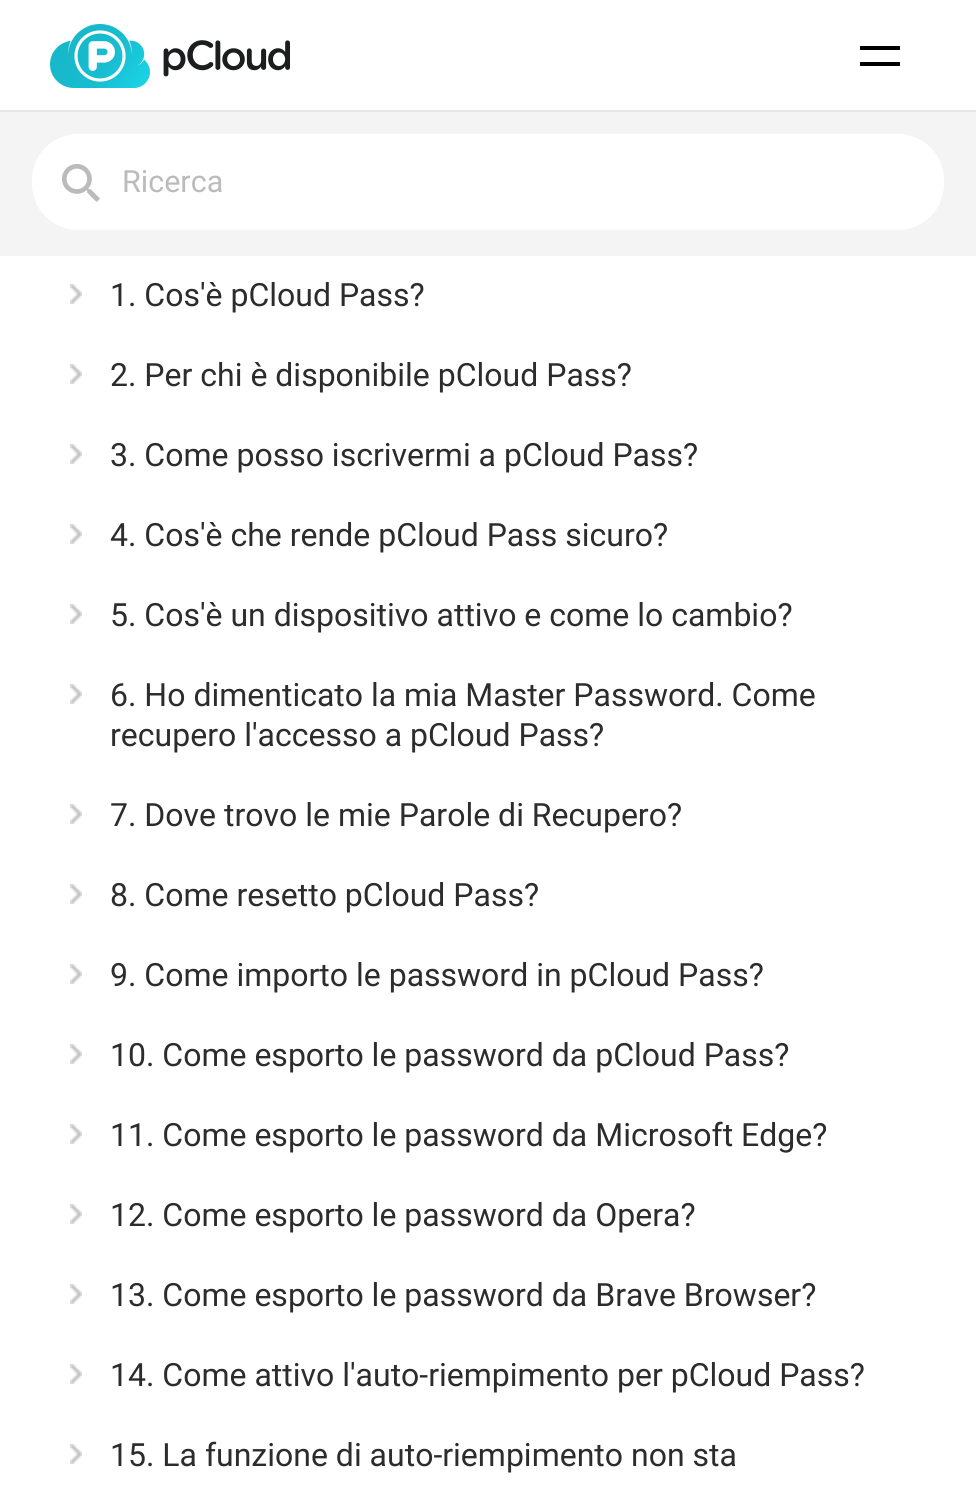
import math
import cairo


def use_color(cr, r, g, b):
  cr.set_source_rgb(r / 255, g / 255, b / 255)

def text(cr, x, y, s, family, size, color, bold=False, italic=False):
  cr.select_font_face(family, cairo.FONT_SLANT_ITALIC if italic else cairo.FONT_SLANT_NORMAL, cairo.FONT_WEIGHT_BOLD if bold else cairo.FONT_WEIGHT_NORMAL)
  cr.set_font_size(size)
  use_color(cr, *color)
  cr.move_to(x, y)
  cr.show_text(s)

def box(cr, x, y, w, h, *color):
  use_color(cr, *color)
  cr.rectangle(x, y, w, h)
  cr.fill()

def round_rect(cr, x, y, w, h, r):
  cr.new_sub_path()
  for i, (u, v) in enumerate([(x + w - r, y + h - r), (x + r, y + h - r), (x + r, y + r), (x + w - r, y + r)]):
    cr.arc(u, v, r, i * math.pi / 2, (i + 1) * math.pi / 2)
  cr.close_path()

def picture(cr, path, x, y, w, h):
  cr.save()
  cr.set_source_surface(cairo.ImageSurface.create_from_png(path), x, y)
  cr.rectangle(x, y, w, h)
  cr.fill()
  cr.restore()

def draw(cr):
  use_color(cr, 255, 255, 255)
  cr.paint()
  box(cr, 0, 110, 976, 2, 230, 230, 230)
  picture(cr, "img_01.png", 50, 24, 240, 64)
  box(cr, 860, 46, 40, 4, 0, 0, 0)
  box(cr, 860, 62, 40, 4, 0, 0, 0)
  box(cr, 0, 112, 976, 144, 244, 244, 244)
  use_color(cr, 255, 255, 255)
  round_rect(cr, 32, 134, 912, 96, 46)
  cr.fill()
  picture(cr, "img_02.png", 62, 164, 38, 38)
  picture(cr, "img_03.png", 70, 284, 12, 20)
  picture(cr, "img_03.png", 70, 364, 12, 20)
  picture(cr, "img_03.png", 70, 444, 12, 20)
  picture(cr, "img_03.png", 70, 524, 12, 20)
  picture(cr, "img_03.png", 70, 604, 12, 20)
  picture(cr, "img_03.png", 70, 684, 12, 20)
  picture(cr, "img_03.png", 70, 804, 12, 20)
  picture(cr, "img_03.png", 70, 884, 12, 20)
  picture(cr, "img_03.png", 70, 964, 12, 20)
  picture(cr, "img_03.png", 70, 1044, 12, 20)
  picture(cr, "img_03.png", 70, 1124, 12, 20)
  picture(cr, "img_03.png", 70, 1204, 12, 20)
  picture(cr, "img_03.png", 70, 1284, 12, 20)
  picture(cr, "img_03.png", 70, 1364, 12, 20)
  picture(cr, "img_03.png", 70, 1444, 12, 20)
  text(cr, 122, 192, "Ricerca", "Roboto", 30.5, (187, 187, 187))
  text(cr, 110, 306, "1. Cos'è pCloud Pass?", "Roboto", 32, (44, 44, 44))
  text(cr, 110, 386, "2. Per chi è disponibile pCloud Pass?", "Roboto", 32, (44, 44, 44))
  text(cr, 110, 466, "3. Come posso iscrivermi a pCloud Pass?", "Roboto", 32, (44, 44, 44))
  text(cr, 110, 546, "4. Cos'è che rende pCloud Pass sicuro?", "Roboto", 32, (44, 44, 44))
  text(cr, 110, 626, "5. Cos'è un dispositivo attivo e come lo cambio?", "Roboto", 32, (44, 44, 44))
  text(cr, 110, 706, "6. Ho dimenticato la mia Master Password. Come", "Roboto", 32, (44, 44, 44))
  text(cr, 110, 746, "recupero l'accesso a pCloud Pass?", "Roboto", 32, (44, 44, 44))
  text(cr, 110, 826, "7. Dove trovo le mie Parole di Recupero?", "Roboto", 32, (44, 44, 44))
  text(cr, 110, 906, "8. Come resetto pCloud Pass?", "Roboto", 32, (44, 44, 44))
  text(cr, 110, 986, "9. Come importo le password in pCloud Pass?", "Roboto", 32, (44, 44, 44))
  text(cr, 110, 1066, "10. Come esporto le password da pCloud Pass?", "Roboto", 32, (44, 44, 44))
  text(cr, 110, 1146, "11. Come esporto le password da Microsoft Edge?", "Roboto", 32, (44, 44, 44))
  text(cr, 110, 1226, "12. Come esporto le password da Opera?", "Roboto", 32, (44, 44, 44))
  text(cr, 110, 1306, "13. Come esporto le password da Brave Browser?", "Roboto", 32, (44, 44, 44))
  text(cr, 110, 1386, "14. Come attivo l'auto-riempimento per pCloud Pass?", "Roboto", 32, (44, 44, 44))
  text(cr, 110, 1466, "15. La funzione di auto-riempimento non sta", "Roboto", 32, (44, 44, 44))


surface = cairo.ImageSurface(cairo.FORMAT_RGB24, 976, 1496)
cr = cairo.Context(surface)
options = cairo.FontOptions()
options.set_hint_metrics(cairo.HINT_METRICS_OFF)
options.set_hint_style(cairo.HINT_STYLE_NONE)
cr.set_font_options(options)
cr.set_miter_limit(4)
draw(cr)
surface.write_to_png("out.png")
